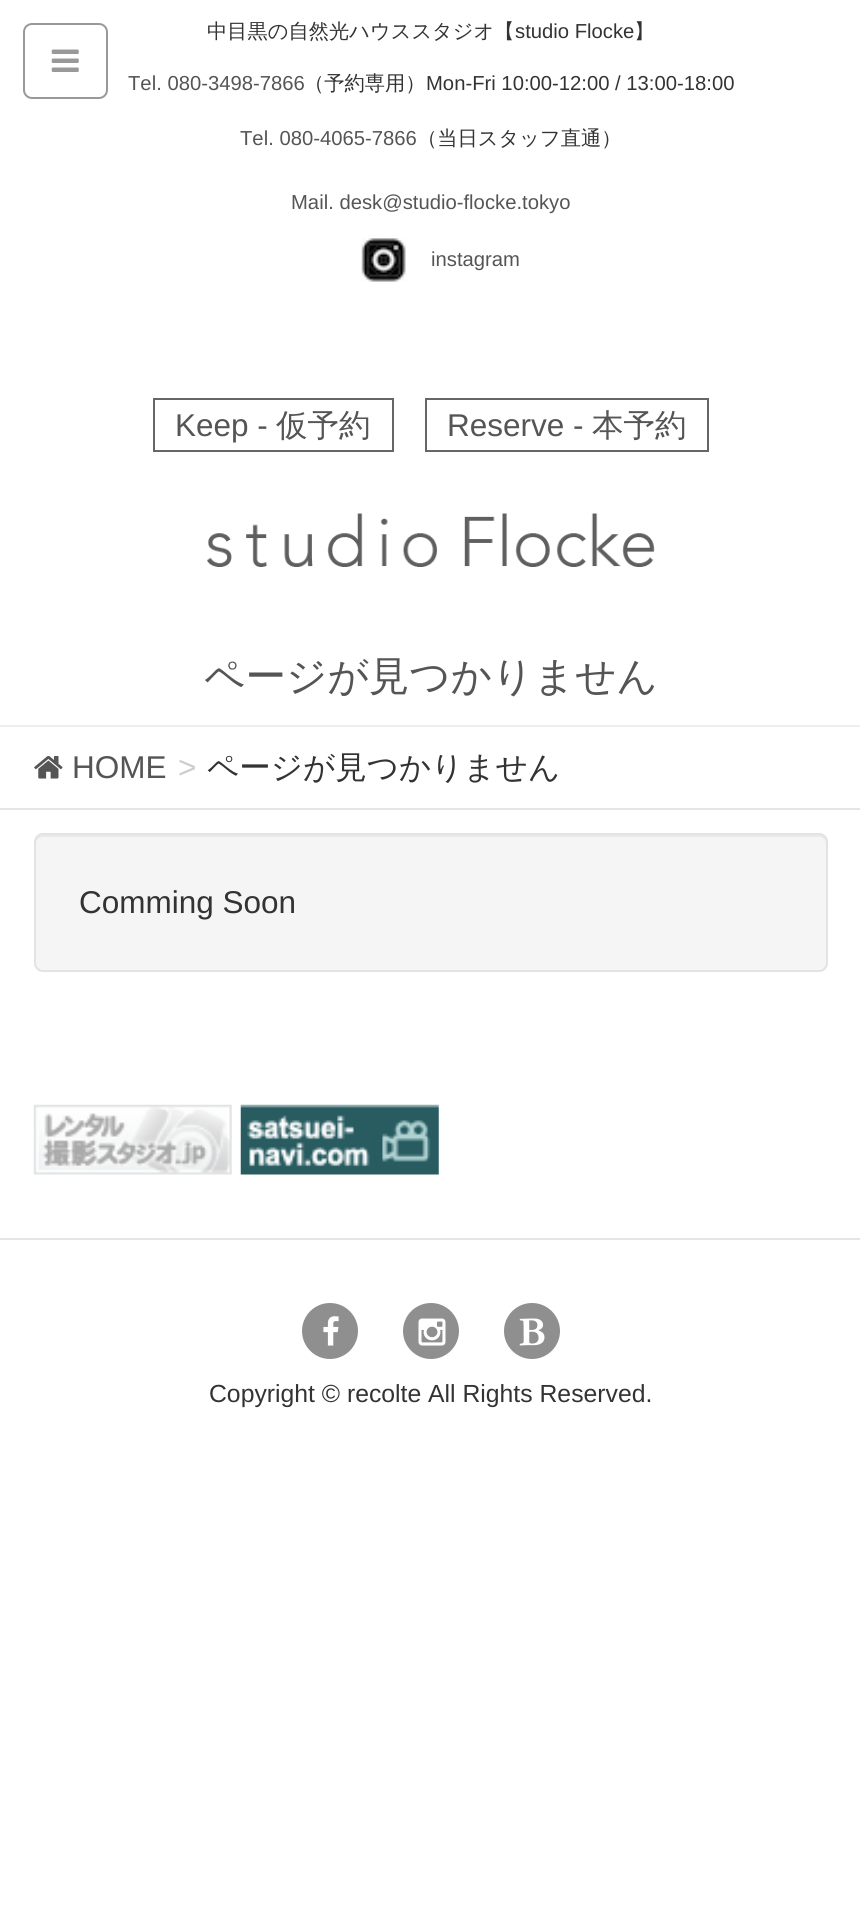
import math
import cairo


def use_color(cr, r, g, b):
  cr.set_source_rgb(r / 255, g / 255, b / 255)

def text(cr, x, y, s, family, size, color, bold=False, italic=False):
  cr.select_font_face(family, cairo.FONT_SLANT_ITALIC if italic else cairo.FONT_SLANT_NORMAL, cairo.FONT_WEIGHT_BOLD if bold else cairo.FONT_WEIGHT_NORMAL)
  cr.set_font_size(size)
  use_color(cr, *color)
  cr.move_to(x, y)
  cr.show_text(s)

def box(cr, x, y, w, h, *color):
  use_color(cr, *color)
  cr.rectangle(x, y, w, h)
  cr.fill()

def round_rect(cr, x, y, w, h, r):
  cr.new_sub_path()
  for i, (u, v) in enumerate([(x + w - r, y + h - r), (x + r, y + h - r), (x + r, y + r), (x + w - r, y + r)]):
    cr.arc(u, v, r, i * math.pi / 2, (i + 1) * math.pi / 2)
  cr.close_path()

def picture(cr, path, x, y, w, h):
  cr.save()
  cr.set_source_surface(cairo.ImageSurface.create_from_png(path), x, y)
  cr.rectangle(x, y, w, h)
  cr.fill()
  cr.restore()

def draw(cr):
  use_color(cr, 255, 255, 255)
  cr.paint()
  round_rect(cr, 24, 24, 83, 74, 8)
  use_color(cr, 153, 153, 153)
  cr.stroke()
  picture(cr, "img_01.png", 51, 49, 28, 23)
  picture(cr, "img_02.png", 361, 238, 45, 44)
  cr.rectangle(154, 399, 239, 52)
  use_color(cr, 102, 102, 102)
  cr.stroke()
  cr.rectangle(426, 399, 282, 52)
  cr.stroke()
  picture(cr, "img_03.png", 207, 513, 448, 54)
  box(cr, 0, 725, 860, 2, 238, 238, 238)
  box(cr, 0, 808, 860, 2, 229, 229, 229)
  picture(cr, "img_04.png", 34, 756, 29, 23)
  use_color(cr, 245, 245, 245)
  round_rect(cr, 34, 833, 794, 139, 9)
  cr.fill()
  use_color(cr, 233, 233, 233)
  cr.new_path()
  cr.move_to(43, 837)
  cr.line_to(819, 837)
  cr.curve_to(823, 837, 826, 840, 826, 844)
  cr.line_to(826, 842)
  cr.curve_to(826, 838, 823, 835, 819, 835)
  cr.line_to(43, 835)
  cr.curve_to(39, 835, 36, 838, 36, 842)
  cr.line_to(36, 844)
  cr.curve_to(36, 840, 39, 837, 43, 837)
  cr.close_path()
  cr.fill()
  round_rect(cr, 35, 834, 792, 137, 8)
  use_color(cr, 227, 227, 227)
  cr.stroke()
  picture(cr, "img_05.png", 33, 1104, 199, 71)
  picture(cr, "img_06.png", 240, 1104, 199, 71)
  box(cr, 0, 1238, 860, 2, 229, 229, 229)
  use_color(cr, 143, 143, 143)
  cr.arc(330, 1331, 27, 0, 2 * math.pi)
  cr.fill_preserve()
  cr.stroke()
  picture(cr, "img_07.png", 323, 1316, 16, 30)
  cr.arc(431, 1331, 27, 0, 2 * math.pi)
  cr.fill_preserve()
  cr.stroke()
  picture(cr, "img_08.png", 418, 1318, 28, 28)
  cr.arc(532, 1331, 27, 0, 2 * math.pi)
  cr.fill_preserve()
  cr.stroke()
  picture(cr, "img_09.png", 519, 1318, 26, 28)
  text(cr, 207, 38, "中目黒の自然光ハウススタジオ【", "WenQuanYi Zen Hei Medium", 20.25, (51, 51, 51))
  text(cr, 515, 38, "studio Flocke", "Liberation Sans", 20.25, (51, 51, 51))
  text(cr, 634, 38, "】", "WenQuanYi Zen Hei Medium", 20.25, (51, 51, 51))
  text(cr, 128, 90, "Tel. 080-3498-7866", "Liberation Sans", 20.25, (85, 85, 85))
  text(cr, 304, 90, "（予約専用）", "WenQuanYi Zen Hei Medium", 20.25, (51, 51, 51))
  text(cr, 426, 90, "Mon-Fri 10:00-12:00 / 13:00-18:00", "Liberation Sans", 20.25, (51, 51, 51))
  text(cr, 240, 145, "Tel. 080-4065-7866", "Liberation Sans", 20.25, (85, 85, 85))
  text(cr, 417, 145, "（当日スタッフ直通）", "WenQuanYi Zen Hei Medium", 20.25, (51, 51, 51))
  text(cr, 291, 209, "Mail. desk@studio-flocke.tokyo", "Liberation Sans", 20.25, (85, 85, 85))
  text(cr, 431, 266, "instagram", "Liberation Sans", 20.25, (85, 85, 85))
  text(cr, 175, 436, "Keep -", "Liberation Sans", 31.5, (85, 85, 85))
  text(cr, 276, 436, "仮予約", "WenQuanYi Zen Hei Medium", 31.5, (85, 85, 85))
  text(cr, 447, 436, "Reserve -", "Liberation Sans", 31.5, (85, 85, 85))
  text(cr, 592, 436, "本予約", "WenQuanYi Zen Hei Medium", 31.5, (85, 85, 85))
  text(cr, 204, 690, "ページが見つかりません", "WenQuanYi Zen Hei Medium", 40.5, (85, 85, 85))
  text(cr, 72, 778, "HOME", "Liberation Sans", 31.5, (85, 85, 85))
  text(cr, 178, 778, ">", "Liberation Sans", 31.5, (204, 204, 204))
  text(cr, 207, 778, "ページが見つかりません", "WenQuanYi Zen Hei Medium", 31.5, (51, 51, 51))
  text(cr, 79, 913, "Comming Soon", "Liberation Sans", 31.5, (51, 51, 51))
  text(cr, 209, 1402, "Copyright © recolte All Rights Reserved.", "Liberation Sans", 24.75, (51, 51, 51))


surface = cairo.ImageSurface(cairo.FORMAT_RGB24, 860, 1908)
cr = cairo.Context(surface)
options = cairo.FontOptions()
options.set_hint_metrics(cairo.HINT_METRICS_OFF)
options.set_hint_style(cairo.HINT_STYLE_NONE)
cr.set_font_options(options)
cr.set_miter_limit(4)
draw(cr)
surface.write_to_png("out.png")
